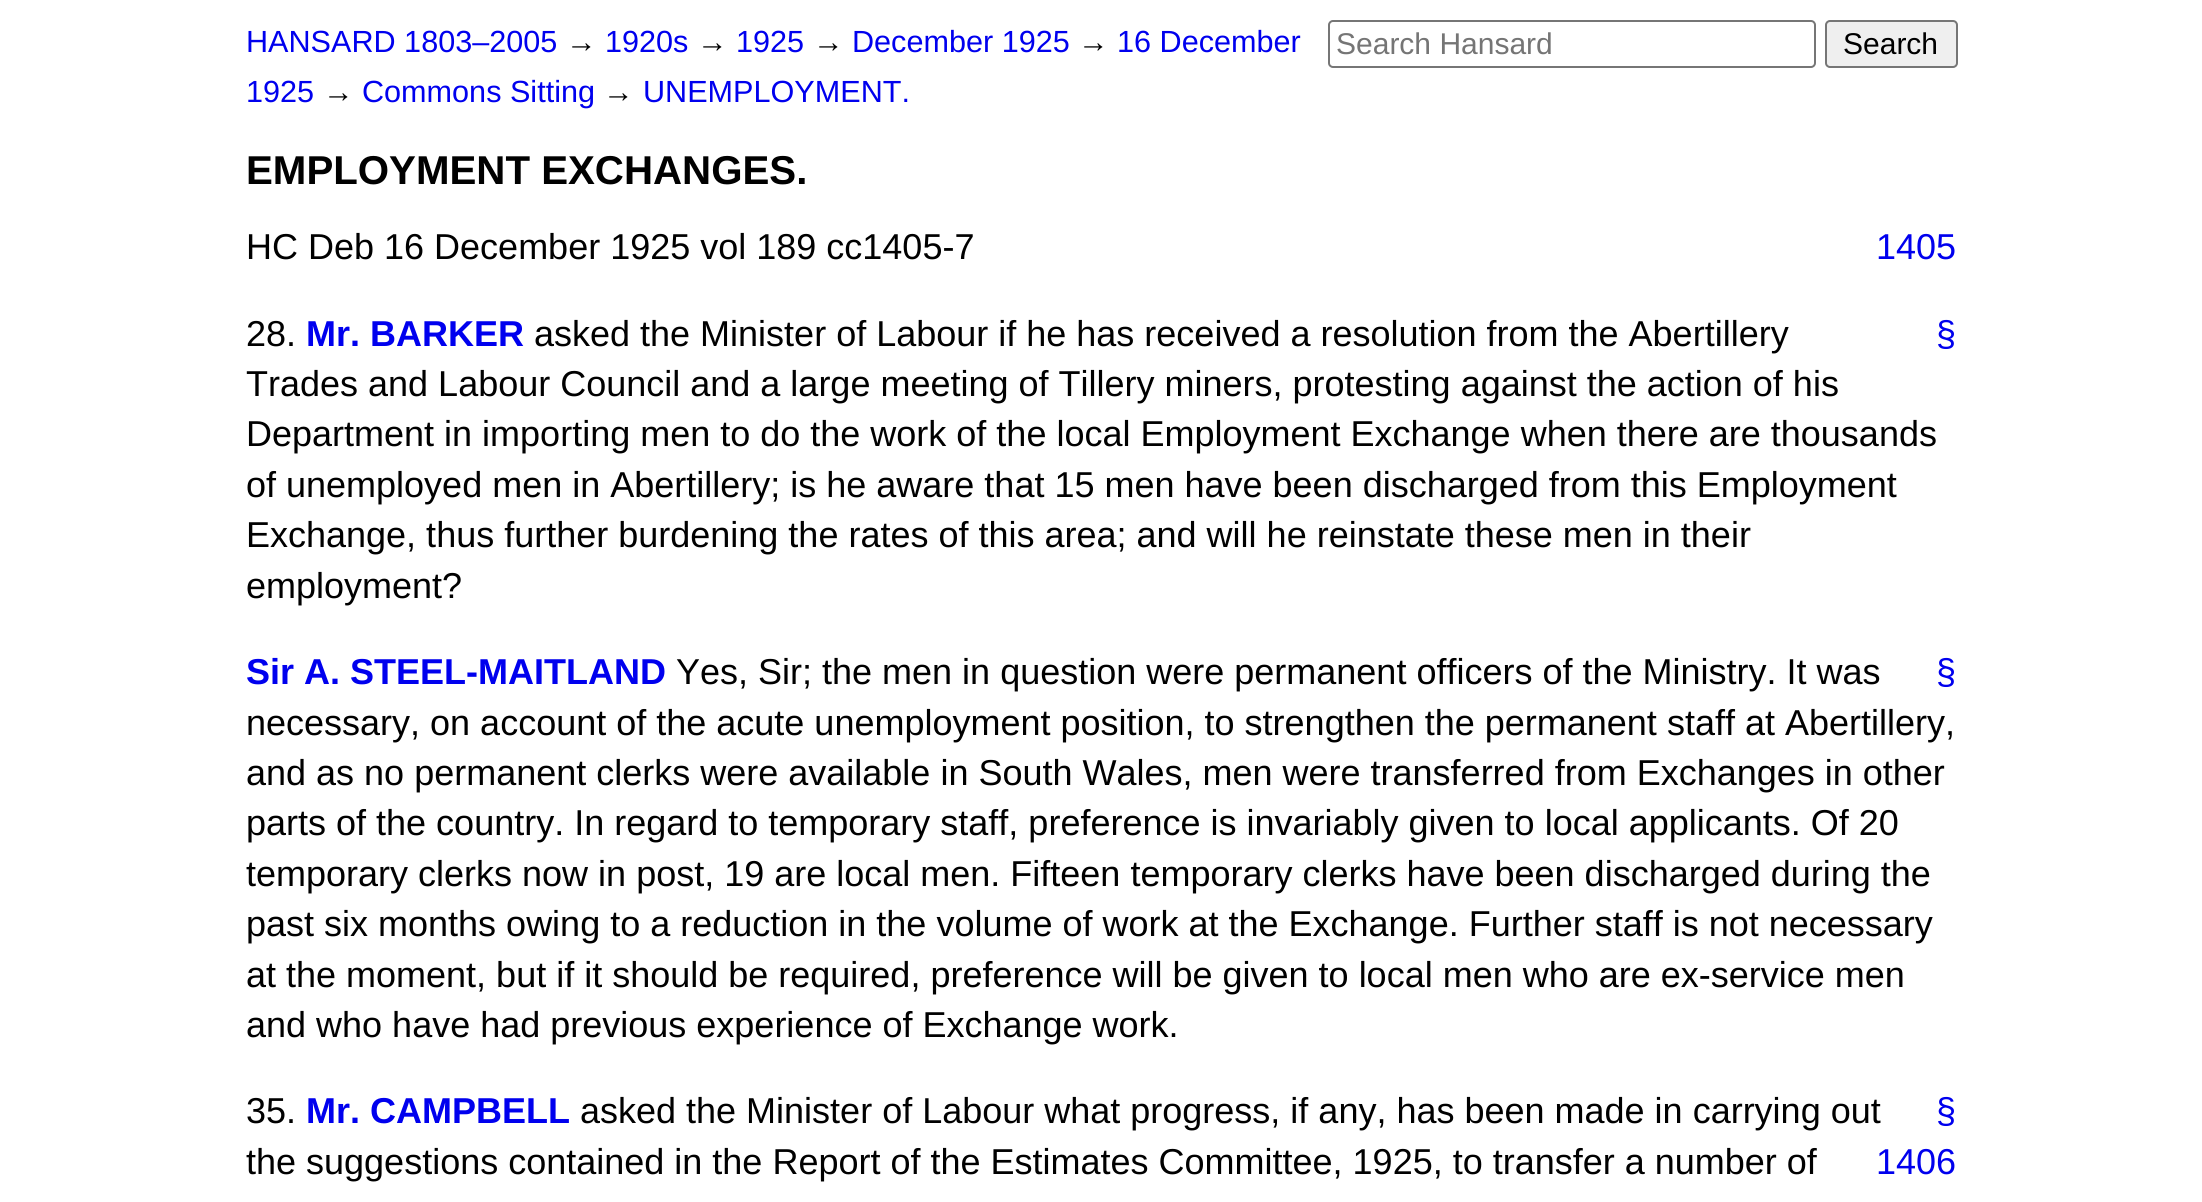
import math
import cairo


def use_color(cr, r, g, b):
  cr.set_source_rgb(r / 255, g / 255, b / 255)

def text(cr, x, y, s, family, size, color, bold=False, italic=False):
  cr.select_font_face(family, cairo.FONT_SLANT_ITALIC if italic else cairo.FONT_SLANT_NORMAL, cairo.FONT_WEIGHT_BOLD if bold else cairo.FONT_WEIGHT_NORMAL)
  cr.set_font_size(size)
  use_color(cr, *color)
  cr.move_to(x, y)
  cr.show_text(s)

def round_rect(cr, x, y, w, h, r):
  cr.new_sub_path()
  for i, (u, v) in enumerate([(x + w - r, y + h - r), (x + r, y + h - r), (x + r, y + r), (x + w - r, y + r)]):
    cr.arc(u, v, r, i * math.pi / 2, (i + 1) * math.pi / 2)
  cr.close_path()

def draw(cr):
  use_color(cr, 255, 255, 255)
  cr.paint()
  round_rect(cr, 1329, 21, 486, 46, 4)
  use_color(cr, 118, 118, 118)
  cr.stroke()
  use_color(cr, 239, 239, 239)
  round_rect(cr, 1826, 21, 131, 46, 4)
  cr.fill_preserve()
  use_color(cr, 118, 118, 118)
  cr.stroke()
  text(cr, 246, 52, "HANSARD 1803–2005", "Liberation Sans", 30.6, (0, 0, 238))
  text(cr, 566, 52, "→", "Liberation Sans", 30.6, (0, 0, 0))
  text(cr, 605, 52, "1920s", "Liberation Sans", 30.6, (0, 0, 238))
  text(cr, 697, 52, "→", "Liberation Sans", 30.6, (0, 0, 0))
  text(cr, 736, 52, "1925", "Liberation Sans", 30.6, (0, 0, 238))
  text(cr, 813, 52, "→", "Liberation Sans", 30.6, (0, 0, 0))
  text(cr, 852, 52, "December 1925", "Liberation Sans", 30.6, (0, 0, 238))
  text(cr, 1078, 52, "→", "Liberation Sans", 30.6, (0, 0, 0))
  text(cr, 1117, 52, "16 December", "Liberation Sans", 30.6, (0, 0, 238))
  text(cr, 246, 102, "1925", "Liberation Sans", 30.6, (0, 0, 238))
  text(cr, 323, 102, "→", "Liberation Sans", 30.6, (0, 0, 0))
  text(cr, 362, 102, "Commons Sitting", "Liberation Sans", 30.6, (0, 0, 238))
  text(cr, 603, 102, "→", "Liberation Sans", 30.6, (0, 0, 0))
  text(cr, 643, 102, "UNEMPLOYMENT.", "Liberation Sans", 30.6, (0, 0, 238))
  text(cr, 1336, 54, "Search Hansard", "Liberation Sans", 30, (117, 117, 117))
  text(cr, 1843, 54, "Search", "Liberation Sans", 30, (0, 0, 0))
  text(cr, 246, 184, "EMPLOYMENT EXCHANGES.", "Liberation Sans", 40.25, (0, 0, 0), bold=True)
  text(cr, 246, 259, "HC Deb 16 December 1925 vol 189 cc1405-7", "Liberation Sans", 36, (0, 0, 0))
  text(cr, 1876, 259, "1405", "Liberation Sans", 36, (0, 0, 238))
  text(cr, 246, 346, "28.", "Liberation Sans", 36, (0, 0, 0))
  text(cr, 306, 346, "Mr. BARKER", "Liberation Sans", 36, (0, 0, 238), bold=True)
  text(cr, 534, 346, "asked the Minister of Labour if he has received a resolution from the Abertillery", "Liberation Sans", 36, (0, 0, 0))
  text(cr, 1936, 346, "§", "Liberation Sans", 36, (0, 0, 238))
  text(cr, 246, 396, "Trades and Labour Council and a large meeting of Tillery miners, protesting against the action of his", "Liberation Sans", 36, (0, 0, 0))
  text(cr, 246, 446, "Department in importing men to do the work of the local Employment Exchange when there are thousands", "Liberation Sans", 36, (0, 0, 0))
  text(cr, 246, 497, "of unemployed men in Abertillery; is he aware that 15 men have been discharged from this Employment", "Liberation Sans", 36, (0, 0, 0))
  text(cr, 246, 547, "Exchange, thus further burdening the rates of this area; and will he reinstate these men in their", "Liberation Sans", 36, (0, 0, 0))
  text(cr, 246, 598, "employment?", "Liberation Sans", 36, (0, 0, 0))
  text(cr, 246, 684, "Sir A. STEEL-MAITLAND", "Liberation Sans", 36, (0, 0, 238), bold=True)
  text(cr, 676, 684, "Yes, Sir; the men in question were permanent officers of the Ministry. It was", "Liberation Sans", 36, (0, 0, 0))
  text(cr, 1936, 684, "§", "Liberation Sans", 36, (0, 0, 238))
  text(cr, 246, 735, "necessary, on account of the acute unemployment position, to strengthen the permanent staff at Abertillery,", "Liberation Sans", 36, (0, 0, 0))
  text(cr, 246, 785, "and as no permanent clerks were available in South Wales, men were transferred from Exchanges in other", "Liberation Sans", 36, (0, 0, 0))
  text(cr, 246, 835, "parts of the country. In regard to temporary staff, preference is invariably given to local applicants. Of 20", "Liberation Sans", 36, (0, 0, 0))
  text(cr, 246, 886, "temporary clerks now in post, 19 are local men. Fifteen temporary clerks have been discharged during the", "Liberation Sans", 36, (0, 0, 0))
  text(cr, 246, 936, "past six months owing to a reduction in the volume of work at the Exchange. Further staff is not necessary", "Liberation Sans", 36, (0, 0, 0))
  text(cr, 246, 987, "at the moment, but if it should be required, preference will be given to local men who are ex-service men", "Liberation Sans", 36, (0, 0, 0))
  text(cr, 246, 1037, "and who have had previous experience of Exchange work.", "Liberation Sans", 36, (0, 0, 0))
  text(cr, 580, 1123, "asked the Minister of Labour what progress, if any, has been made in carrying out", "Liberation Sans", 36, (0, 0, 0))
  text(cr, 246, 1174, "the suggestions contained in the Report of the Estimates Committee, 1925, to transfer a number of", "Liberation Sans", 36, (0, 0, 0))
  text(cr, 1876, 1174, "1406", "Liberation Sans", 36, (0, 0, 238))
  text(cr, 246, 1123, "35.", "Liberation Sans", 36, (0, 0, 0))
  text(cr, 306, 1123, "Mr. CAMPBELL", "Liberation Sans", 36, (0, 0, 238), bold=True)
  text(cr, 1936, 1123, "§", "Liberation Sans", 36, (0, 0, 238))


surface = cairo.ImageSurface(cairo.FORMAT_RGB24, 2202, 1202)
cr = cairo.Context(surface)
options = cairo.FontOptions()
options.set_hint_metrics(cairo.HINT_METRICS_OFF)
options.set_hint_style(cairo.HINT_STYLE_NONE)
cr.set_font_options(options)
cr.set_miter_limit(4)
draw(cr)
surface.write_to_png("out.png")
